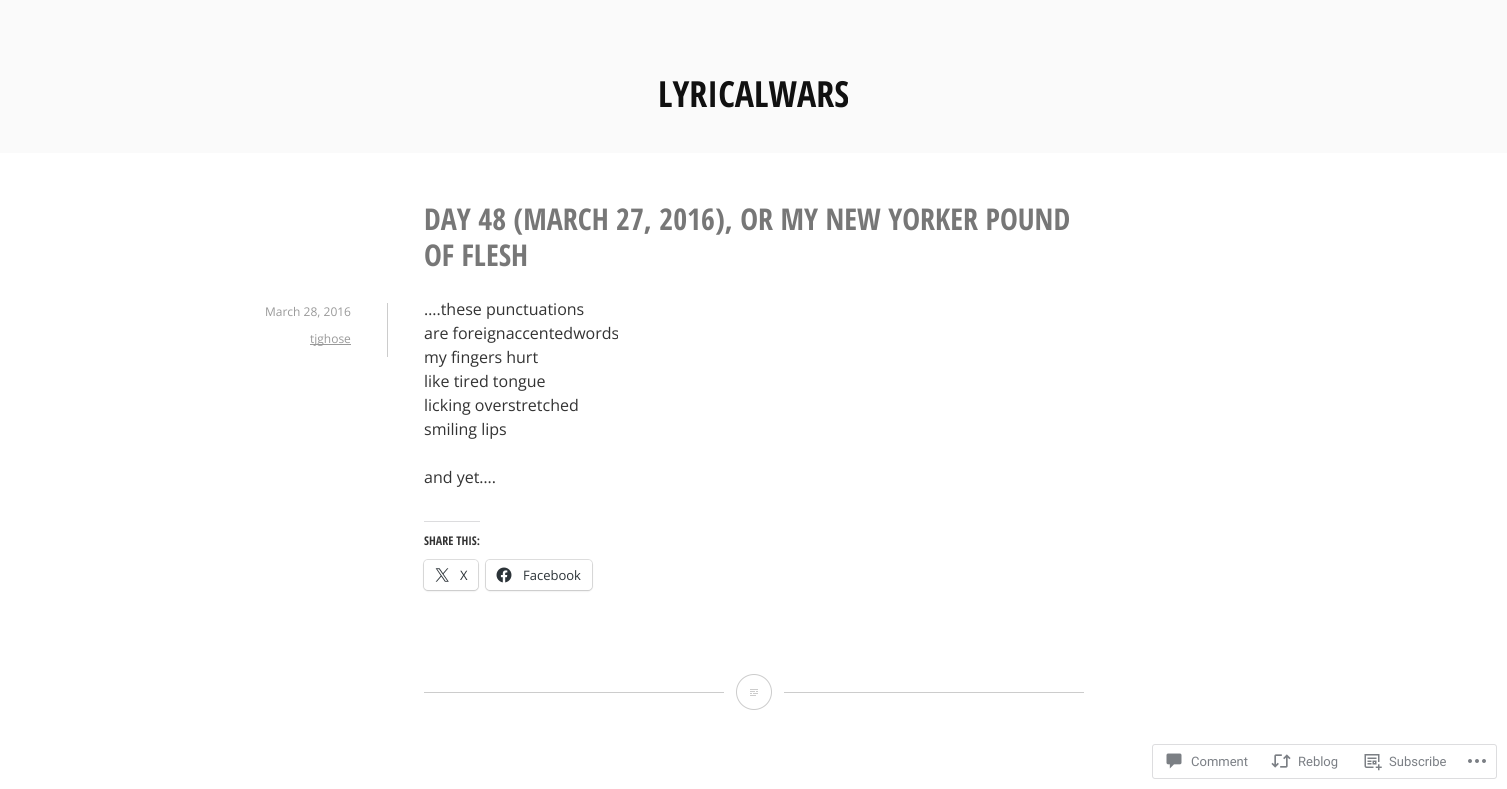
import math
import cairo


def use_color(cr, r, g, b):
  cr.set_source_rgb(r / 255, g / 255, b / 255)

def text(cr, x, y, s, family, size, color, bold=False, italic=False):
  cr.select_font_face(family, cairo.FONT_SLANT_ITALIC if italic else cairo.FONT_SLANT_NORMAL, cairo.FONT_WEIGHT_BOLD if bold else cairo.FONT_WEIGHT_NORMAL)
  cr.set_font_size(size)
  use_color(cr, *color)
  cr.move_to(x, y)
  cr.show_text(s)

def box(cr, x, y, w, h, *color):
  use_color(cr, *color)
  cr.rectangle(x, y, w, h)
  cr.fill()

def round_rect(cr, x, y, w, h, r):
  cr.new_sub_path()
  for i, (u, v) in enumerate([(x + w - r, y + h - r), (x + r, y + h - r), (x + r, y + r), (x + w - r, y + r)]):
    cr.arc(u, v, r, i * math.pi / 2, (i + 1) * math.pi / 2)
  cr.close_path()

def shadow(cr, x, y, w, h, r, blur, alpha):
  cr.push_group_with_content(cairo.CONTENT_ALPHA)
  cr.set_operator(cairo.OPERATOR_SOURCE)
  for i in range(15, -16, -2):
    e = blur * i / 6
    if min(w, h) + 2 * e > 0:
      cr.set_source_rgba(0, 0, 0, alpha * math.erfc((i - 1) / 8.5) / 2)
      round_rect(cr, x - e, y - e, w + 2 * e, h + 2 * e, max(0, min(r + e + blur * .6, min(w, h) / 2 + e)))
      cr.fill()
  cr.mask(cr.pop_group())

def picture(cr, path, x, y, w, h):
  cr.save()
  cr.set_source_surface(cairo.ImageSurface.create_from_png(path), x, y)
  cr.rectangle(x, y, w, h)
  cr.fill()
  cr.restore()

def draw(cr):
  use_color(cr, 255, 255, 255)
  cr.paint()
  box(cr, 0, 0, 1507, 153, 250, 250, 250)
  box(cr, 424, 692, 660, 1, 204, 204, 204)
  box(cr, 387, 303, 1, 54, 204, 204, 204)
  box(cr, 310, 344, 41, 1, 153, 153, 153)
  box(cr, 424, 521, 56, 1, 220, 220, 222)
  round_rect(cr, 423.5, 559.5, 55, 31, 4.5)
  use_color(cr, 224, 224, 224)
  cr.set_line_width(1)
  cr.stroke()
  use_color(cr, 0, 0, 0)
  shadow(cr, 424, 561, 54, 30, 4, 1, 0.12)
  use_color(cr, 255, 255, 255)
  round_rect(cr, 424, 560, 54, 30, 4)
  cr.fill()
  picture(cr, "img_01.png", 435, 568, 14, 14)
  round_rect(cr, 485.5, 559.5, 107, 31, 4.5)
  use_color(cr, 224, 224, 224)
  cr.stroke()
  use_color(cr, 0, 0, 0)
  shadow(cr, 486, 561, 106, 30, 4, 1, 0.12)
  use_color(cr, 255, 255, 255)
  round_rect(cr, 486, 560, 106, 30, 4)
  cr.fill()
  picture(cr, "img_02.png", 496, 567, 16, 16)
  box(cr, 724, 692, 60, 1, 255, 255, 255)
  cr.arc(754, 692, 17.5, 0, 2 * math.pi)
  use_color(cr, 204, 204, 204)
  cr.stroke()
  picture(cr, "img_03.png", 750, 689, 8, 7)
  round_rect(cr, 1152.5, 744.5, 344, 34, 2.5)
  use_color(cr, 221, 221, 223)
  cr.stroke()
  picture(cr, "img_04.png", 1166, 753, 16, 16)
  picture(cr, "img_05.png", 1271, 754, 20, 14)
  picture(cr, "img_06.png", 1364, 754, 18, 17)
  picture(cr, "img_07.png", 1468, 759, 18, 4)
  text(cr, 658, 107, "LYRICALWARS", "Open Sans Condensed", 36, (17, 17, 17), bold=True)
  text(cr, 424, 230, "DAY 48 (MARCH 27, 2016), OR MY NEW YORKER POUND", "Open Sans Condensed", 30, (119, 119, 119), bold=True)
  text(cr, 424, 266, "OF FLESH", "Open Sans Condensed", 30, (119, 119, 119), bold=True)
  text(cr, 265, 316, "March 28, 2016", "Open Sans", 12, (153, 153, 153))
  text(cr, 310, 343, "tjghose", "Open Sans", 12, (153, 153, 153))
  text(cr, 424, 315, "….these punctuations", "Open Sans", 16, (51, 51, 51))
  text(cr, 424, 339, "are foreignaccentedwords", "Open Sans", 16, (51, 51, 51))
  text(cr, 424, 363, "my fingers hurt", "Open Sans", 16, (51, 51, 51))
  text(cr, 424, 387, "like tired tongue", "Open Sans", 16, (51, 51, 51))
  text(cr, 424, 411, "licking overstretched", "Open Sans", 16, (51, 51, 51))
  text(cr, 424, 435, "smiling lips", "Open Sans", 16, (51, 51, 51))
  text(cr, 424, 483, "and yet….", "Open Sans", 16, (51, 51, 51))
  text(cr, 424, 545, "SHARE THIS:", "Open Sans Condensed", 12, (51, 51, 51), bold=True)
  text(cr, 460, 580, "X", "Open Sans", 13, (44, 51, 56))
  text(cr, 523, 580, "Facebook", "Open Sans", 13, (44, 51, 56))
  text(cr, 1191, 766, "Comment", "Roboto", 13, (123, 127, 133))
  text(cr, 1298, 766, "Reblog", "Roboto", 13, (123, 127, 133))
  text(cr, 1389, 766, "Subscribe", "Roboto", 13, (123, 127, 133))


surface = cairo.ImageSurface(cairo.FORMAT_RGB24, 1507, 789)
cr = cairo.Context(surface)
options = cairo.FontOptions()
options.set_hint_metrics(cairo.HINT_METRICS_OFF)
options.set_hint_style(cairo.HINT_STYLE_NONE)
cr.set_font_options(options)
cr.set_miter_limit(4)
draw(cr)
surface.write_to_png("out.png")
